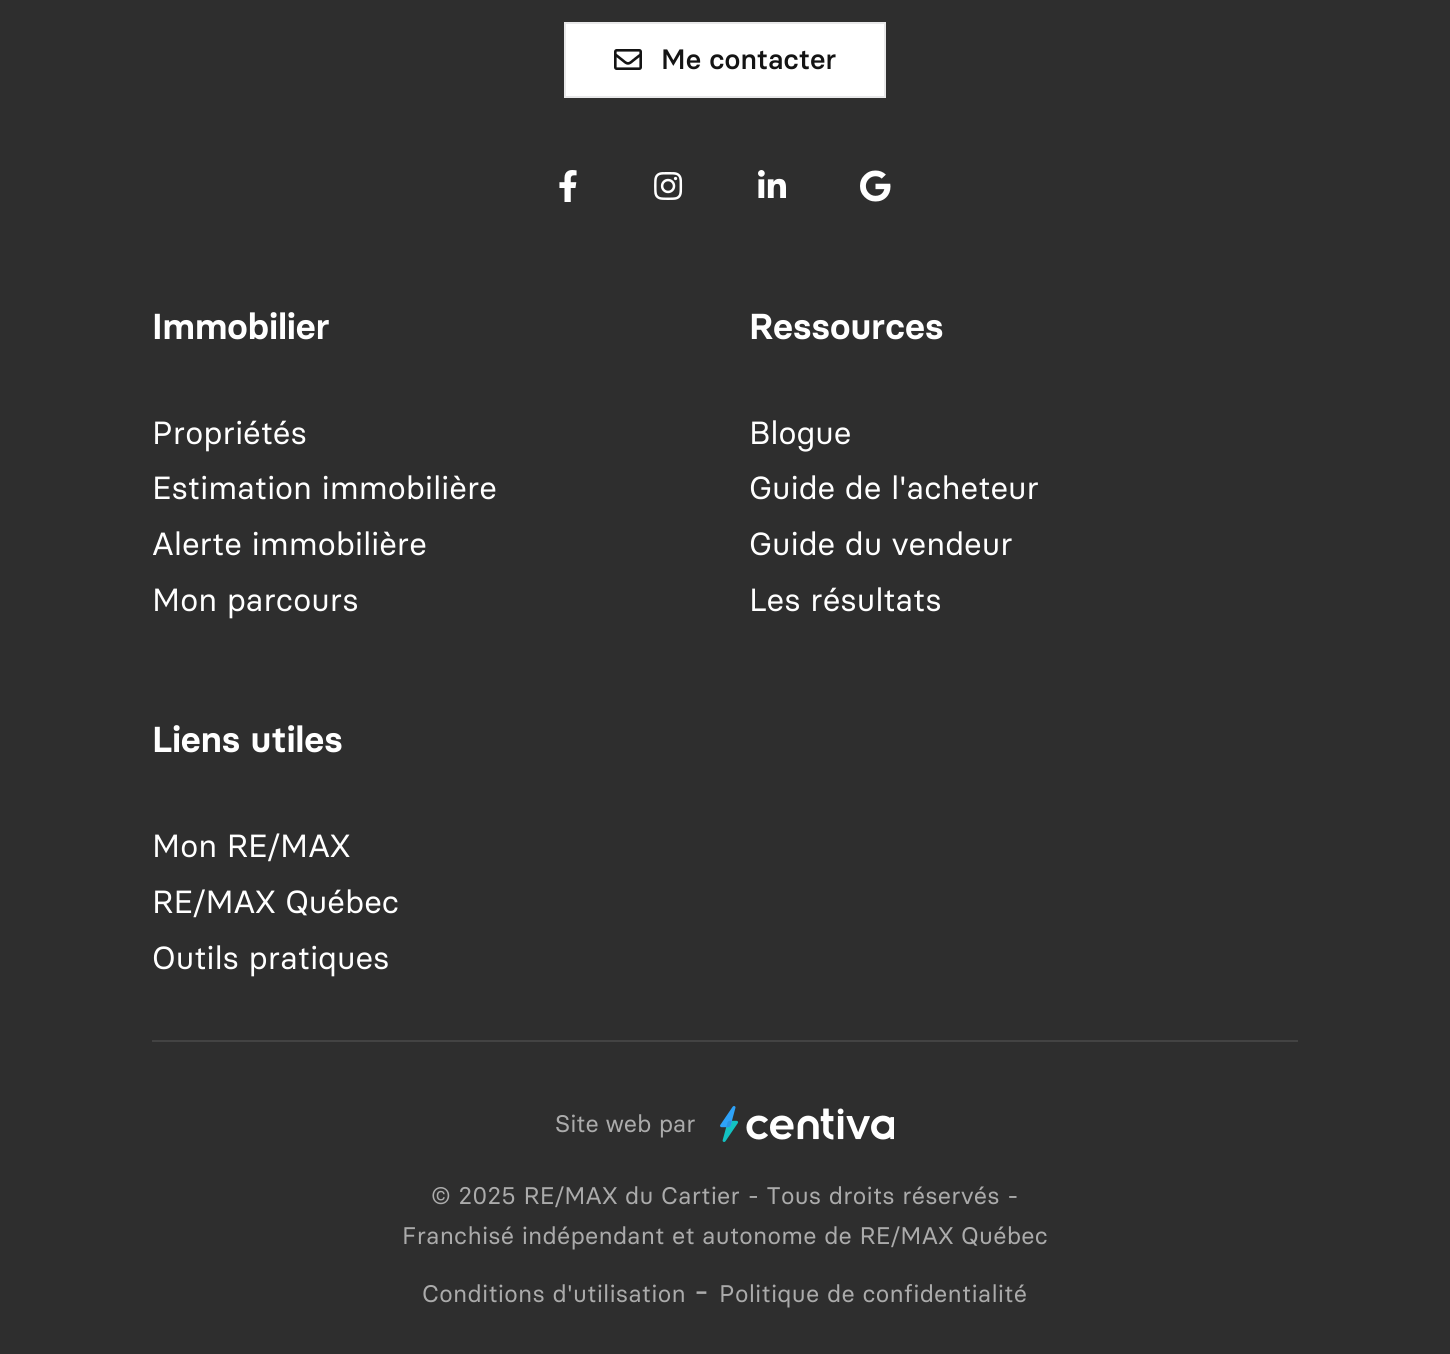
import math
import cairo


def use_color(cr, r, g, b):
  cr.set_source_rgb(r / 255, g / 255, b / 255)

def text(cr, x, y, s, family, size, color, bold=False, italic=False):
  cr.select_font_face(family, cairo.FONT_SLANT_ITALIC if italic else cairo.FONT_SLANT_NORMAL, cairo.FONT_WEIGHT_BOLD if bold else cairo.FONT_WEIGHT_NORMAL)
  cr.set_font_size(size)
  use_color(cr, *color)
  cr.move_to(x, y)
  cr.show_text(s)

def spaced_text(cr, x, y, s, letter, word):
  cr.move_to(x, y)
  for ch in s:
    cr.show_text(ch)
    cr.rel_move_to(letter + word * (ch == ' '), 0)

def box(cr, x, y, w, h, *color):
  use_color(cr, *color)
  cr.rectangle(x, y, w, h)
  cr.fill()

def picture(cr, path, x, y, w, h):
  cr.save()
  cr.set_source_surface(cairo.ImageSurface.create_from_png(path), x, y)
  cr.rectangle(x, y, w, h)
  cr.fill()
  cr.restore()

def draw(cr):
  use_color(cr, 46, 46, 46)
  cr.paint()
  use_color(cr, 255, 255, 255)
  cr.rectangle(565, 23, 320, 74)
  cr.fill_preserve()
  use_color(cr, 232, 232, 233)
  cr.stroke()
  picture(cr, "img_01.png", 614, 49, 28, 21)
  picture(cr, "img_02.png", 559, 170, 18, 32)
  picture(cr, "img_03.png", 654, 172, 29, 28)
  picture(cr, "img_04.png", 758, 170, 28, 28)
  picture(cr, "img_05.png", 860, 170, 31, 32)
  box(cr, 152, 1040, 1146, 2, 67, 67, 67)
  picture(cr, "img_06.png", 720, 1106, 174, 36)
  text(cr, 661, 69, "Me contacter", "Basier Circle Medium", 28, (20, 20, 20))
  text(cr, 152, 339, "Immobilier", "Basier Circle SemiBold", 36, (255, 255, 255))
  text(cr, 152, 444, "Propriétés", "Basier Circle", 32, (255, 255, 255))
  text(cr, 152, 499, "Estimation immobilière", "Basier Circle", 32, (255, 255, 255))
  text(cr, 152, 555, "Alerte immobilière", "Basier Circle", 32, (255, 255, 255))
  text(cr, 152, 611, "Mon parcours", "Basier Circle", 32, (255, 255, 255))
  text(cr, 749, 339, "Ressources", "Basier Circle SemiBold", 36, (255, 255, 255))
  text(cr, 749, 444, "Blogue", "Basier Circle", 32, (255, 255, 255))
  text(cr, 749, 499, "Guide de l'acheteur", "Basier Circle", 32, (255, 255, 255))
  text(cr, 749, 555, "Guide du vendeur", "Basier Circle", 32, (255, 255, 255))
  text(cr, 749, 611, "Les résultats", "Basier Circle", 32, (255, 255, 255))
  text(cr, 152, 752, "Liens utiles", "Basier Circle SemiBold", 36, (255, 255, 255))
  text(cr, 152, 857, "Mon RE/MAX", "Basier Circle", 32, (255, 255, 255))
  text(cr, 152, 913, "RE/MAX Québec", "Basier Circle", 32, (255, 255, 255))
  text(cr, 152, 969, "Outils pratiques", "Basier Circle", 32, (255, 255, 255))
  text(cr, 555, 1132, "Site web par", "Basier Circle", 24, (171, 171, 171))
  spaced_text(cr, 431, 1204, "© 2025 RE/MAX du Cartier - Tous droits réservés -", 0.25, 0)
  spaced_text(cr, 402, 1244, "Franchisé indépendant et autonome de RE/MAX Québec", 0.25, 0)
  spaced_text(cr, 422, 1302, "Conditions d'utilisation", 0.3, 0)
  cr.set_font_size(32)
  spaced_text(cr, 694, 1302, "-", 0.3, 0)
  cr.set_font_size(24)
  spaced_text(cr, 719, 1302, "Politique de confidentialité", 0.3, 0)


surface = cairo.ImageSurface(cairo.FORMAT_RGB24, 1450, 1354)
cr = cairo.Context(surface)
options = cairo.FontOptions()
options.set_hint_metrics(cairo.HINT_METRICS_OFF)
options.set_hint_style(cairo.HINT_STYLE_NONE)
cr.set_font_options(options)
cr.set_miter_limit(4)
draw(cr)
surface.write_to_png("out.png")
